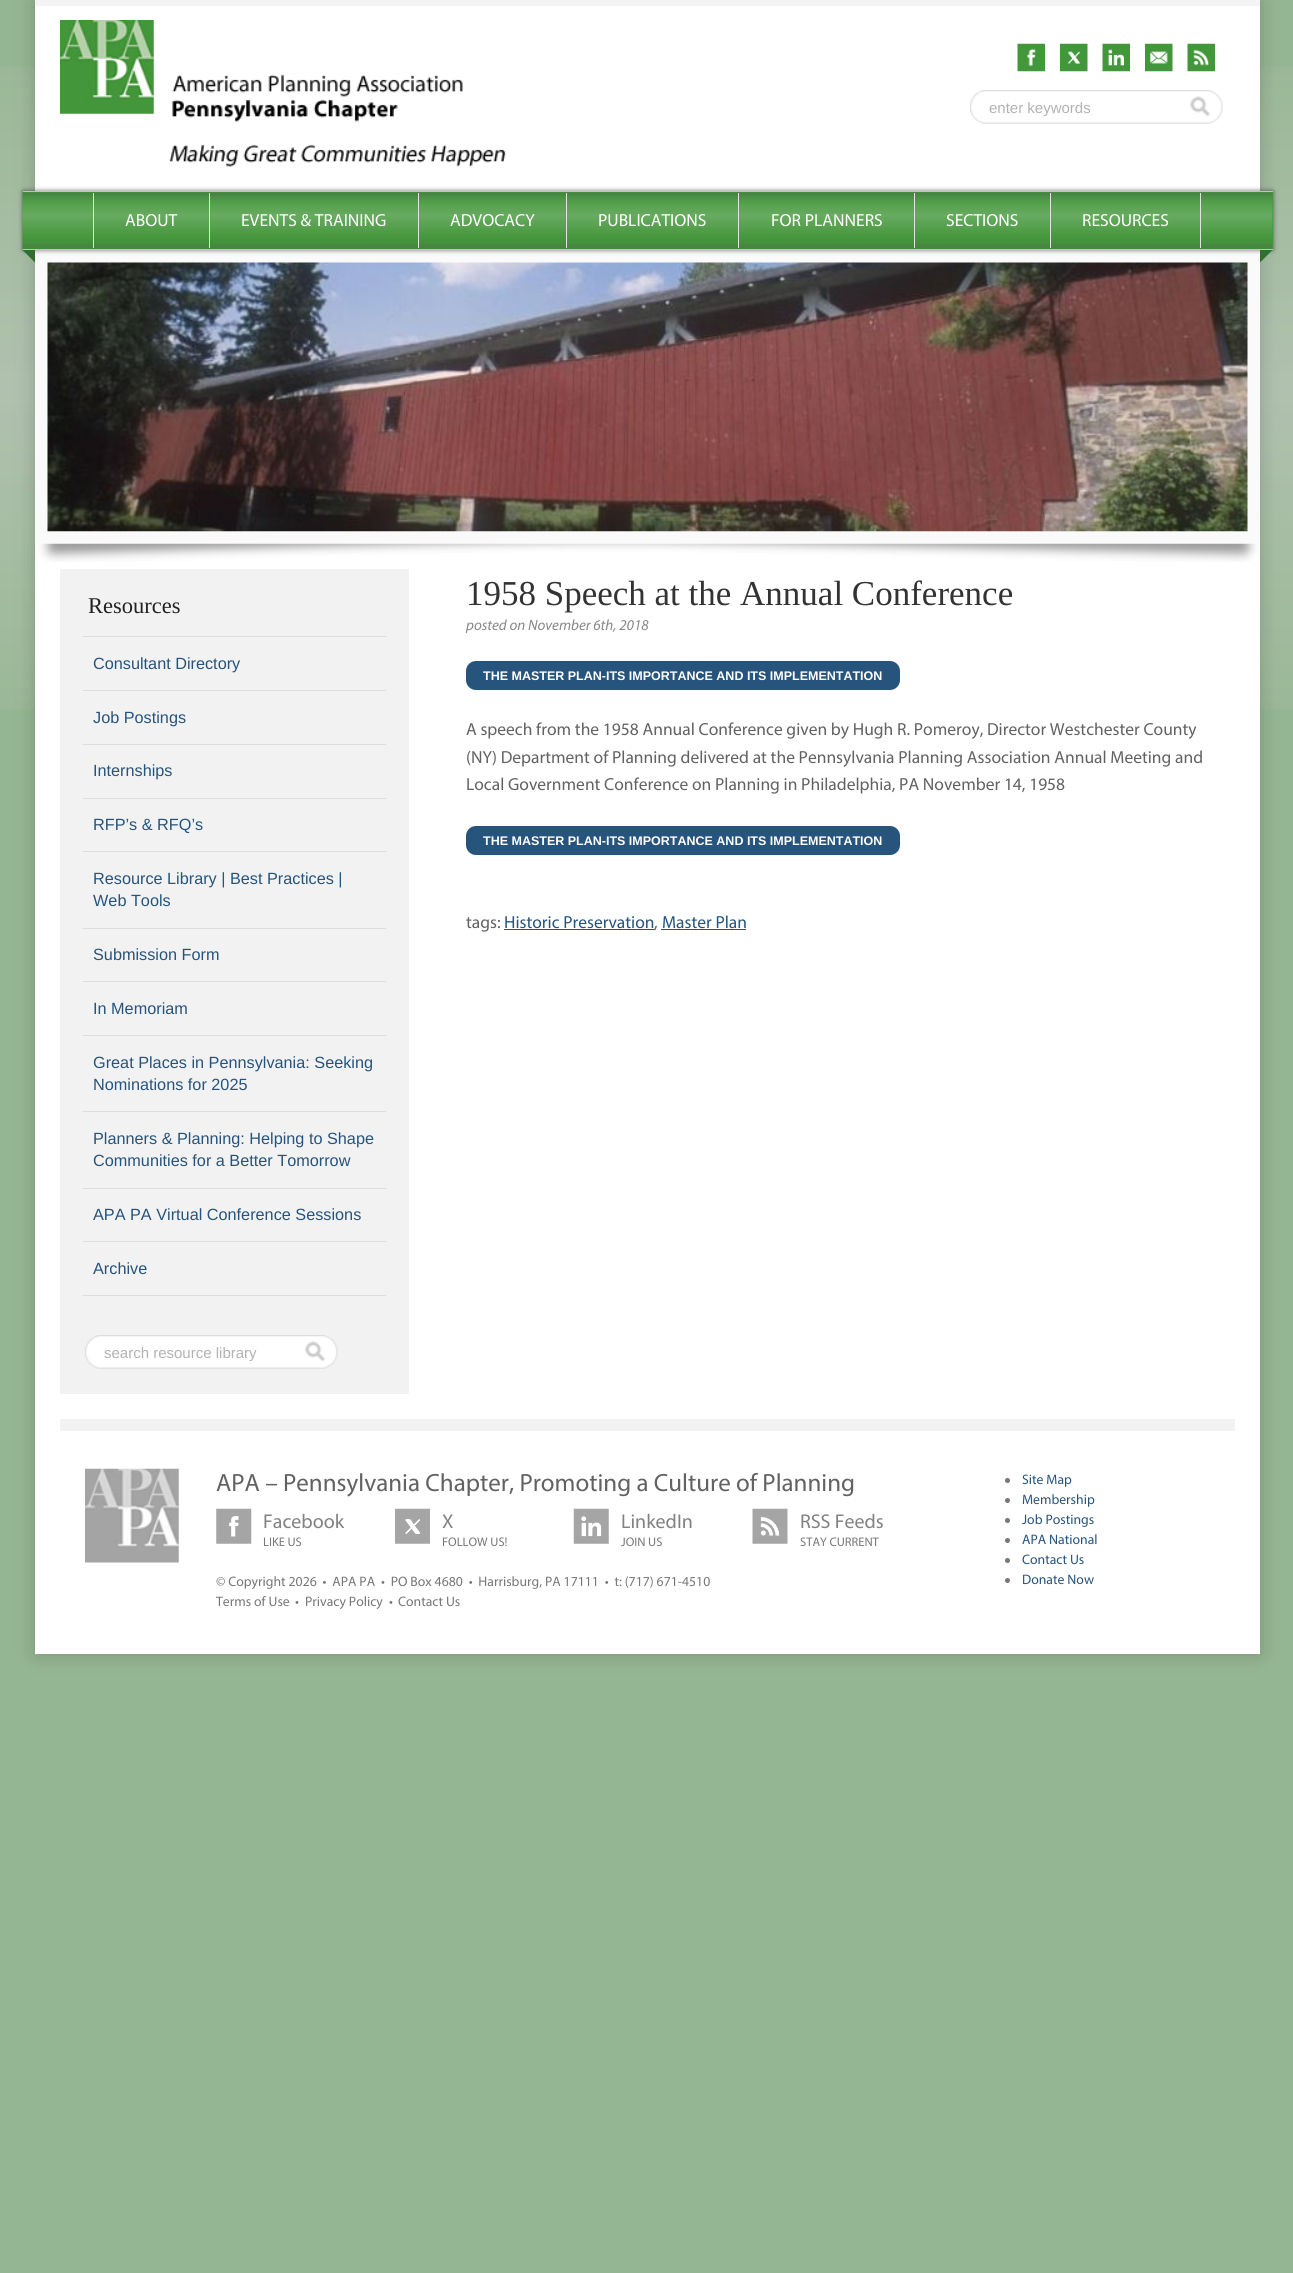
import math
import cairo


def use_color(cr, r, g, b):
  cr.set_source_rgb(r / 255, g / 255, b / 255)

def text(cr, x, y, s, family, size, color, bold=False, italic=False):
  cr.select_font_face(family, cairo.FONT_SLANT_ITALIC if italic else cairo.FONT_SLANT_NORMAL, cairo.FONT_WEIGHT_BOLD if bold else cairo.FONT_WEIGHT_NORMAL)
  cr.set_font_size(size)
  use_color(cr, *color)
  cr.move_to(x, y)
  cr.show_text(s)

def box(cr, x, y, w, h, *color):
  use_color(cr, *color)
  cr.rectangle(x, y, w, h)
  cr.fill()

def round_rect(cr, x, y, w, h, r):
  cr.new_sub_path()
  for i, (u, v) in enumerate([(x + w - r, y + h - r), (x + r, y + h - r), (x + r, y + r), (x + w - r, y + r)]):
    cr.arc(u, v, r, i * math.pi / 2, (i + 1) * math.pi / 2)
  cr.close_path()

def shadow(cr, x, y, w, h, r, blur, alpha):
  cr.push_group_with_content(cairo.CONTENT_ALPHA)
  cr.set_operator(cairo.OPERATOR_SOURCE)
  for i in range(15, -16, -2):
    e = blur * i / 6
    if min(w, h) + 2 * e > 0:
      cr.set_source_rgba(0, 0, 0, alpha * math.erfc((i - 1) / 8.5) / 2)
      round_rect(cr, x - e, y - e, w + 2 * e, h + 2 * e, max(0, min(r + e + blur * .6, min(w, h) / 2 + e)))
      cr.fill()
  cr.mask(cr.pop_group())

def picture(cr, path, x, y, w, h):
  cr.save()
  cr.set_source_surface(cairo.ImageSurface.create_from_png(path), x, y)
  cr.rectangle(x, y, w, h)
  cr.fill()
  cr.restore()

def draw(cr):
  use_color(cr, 149, 182, 146)
  cr.paint()
  picture(cr, "img_01.png", 0, 66, 1293, 644)
  use_color(cr, 0, 0, 0)
  shadow(cr, 35, 0, 1225, 1654, 0, 9.5, 0.2)
  box(cr, 35, 6, 1225, 1648, 255, 255, 255)
  box(cr, 35, 0, 1225, 6, 244, 244, 244)
  picture(cr, "img_02.png", 60, 20, 446, 147)
  picture(cr, "img_03.png", 1017, 43, 28, 29)
  picture(cr, "img_04.png", 1060, 43, 28, 29)
  picture(cr, "img_05.png", 1102, 43, 28, 29)
  picture(cr, "img_06.png", 1145, 43, 28, 29)
  picture(cr, "img_07.png", 1187, 43, 28, 29)
  picture(cr, "img_08.png", 970, 90, 253, 34)
  picture(cr, "img_10.png", 35, 250, 1225, 312)
  use_color(cr, 0, 0, 0)
  shadow(cr, 23, 191, 1250, 59, 0, 2.5, 0.55)
  box(cr, 23, 192, 1250, 57, 67, 150, 58)
  picture(cr, "img_09.png", 22, 192, 1251, 57)
  box(cr, 23, 191, 1250, 1, 194, 194, 194)
  box(cr, 23, 249, 1250, 1, 194, 194, 194)
  box(cr, 209, 193, 1, 55, 226, 226, 226)
  box(cr, 93, 193, 1, 55, 226, 226, 226)
  box(cr, 418, 193, 1, 55, 226, 226, 226)
  box(cr, 566, 193, 1, 55, 226, 226, 226)
  box(cr, 738, 193, 1, 55, 226, 226, 226)
  box(cr, 914, 193, 1, 55, 226, 226, 226)
  box(cr, 1050, 193, 1, 55, 226, 226, 226)
  box(cr, 1200, 193, 1, 55, 226, 226, 226)
  use_color(cr, 48, 112, 43)
  cr.new_path()
  cr.move_to(22.5, 250)
  cr.line_to(35, 250)
  cr.line_to(35, 262.5)
  cr.close_path()
  cr.fill()
  cr.new_path()
  cr.move_to(1260, 250)
  cr.line_to(1272.5, 250)
  cr.line_to(1260, 262.5)
  cr.close_path()
  cr.fill()
  picture(cr, "img_11.png", 47, 262, 1201, 270)
  box(cr, 60, 569, 349, 825, 242, 242, 242)
  box(cr, 83, 1295, 303, 1, 221, 221, 221)
  box(cr, 83, 636, 303, 1, 221, 221, 221)
  box(cr, 83, 690, 303, 1, 221, 221, 221)
  box(cr, 83, 744, 303, 1, 221, 221, 221)
  box(cr, 83, 798, 303, 1, 221, 221, 221)
  box(cr, 83, 851, 303, 1, 221, 221, 221)
  box(cr, 83, 928, 303, 1, 221, 221, 221)
  box(cr, 83, 981, 303, 1, 221, 221, 221)
  box(cr, 83, 1035, 303, 1, 221, 221, 221)
  box(cr, 83, 1111, 303, 1, 221, 221, 221)
  box(cr, 83, 1188, 303, 1, 221, 221, 221)
  box(cr, 83, 1241, 303, 1, 221, 221, 221)
  picture(cr, "img_12.png", 85, 1335, 253, 34)
  use_color(cr, 38, 84, 124)
  round_rect(cr, 466, 661, 434, 29, 10)
  cr.fill()
  round_rect(cr, 466, 826, 434, 29, 10)
  cr.fill()
  box(cr, 504, 929, 151, 1, 38, 84, 124)
  box(cr, 661, 929, 85, 1, 38, 84, 124)
  box(cr, 60, 1419, 1175, 12, 242, 242, 242)
  picture(cr, "img_13.png", 85, 1468, 94, 95)
  picture(cr, "img_14.png", 216, 1508, 36, 36)
  picture(cr, "img_15.png", 395, 1508, 35, 36)
  picture(cr, "img_16.png", 573, 1508, 36, 36)
  picture(cr, "img_17.png", 752, 1508, 36, 36)
  use_color(cr, 119, 119, 119)
  cr.arc(1007.5, 1480.5, 2.5, 0, 2 * math.pi)
  cr.fill()
  cr.arc(1007.5, 1500.5, 2.5, 0, 2 * math.pi)
  cr.fill()
  cr.arc(1007.5, 1520.5, 2.5, 0, 2 * math.pi)
  cr.fill()
  cr.arc(1007.5, 1540.5, 2.5, 0, 2 * math.pi)
  cr.fill()
  cr.arc(1007.5, 1560.5, 2.5, 0, 2 * math.pi)
  cr.fill()
  cr.arc(1007.5, 1580.5, 2.5, 0, 2 * math.pi)
  cr.fill()
  text(cr, 989, 113, "enter keywords", "Liberation Sans", 15, (178, 178, 178))
  text(cr, 125, 226, "ABOUT", "Myriad", 17.5, (255, 255, 255))
  text(cr, 241, 226, "EVENTS & TRAINING", "Myriad", 17.5, (255, 255, 255))
  text(cr, 450, 226, "ADVOCACY", "Myriad", 17.5, (255, 255, 255))
  text(cr, 598, 226, "PUBLICATIONS", "Myriad", 17.5, (255, 255, 255))
  text(cr, 771, 226, "FOR PLANNERS", "Myriad", 17.5, (255, 255, 255))
  text(cr, 946, 226, "SECTIONS", "Myriad", 17.5, (255, 255, 255))
  text(cr, 1082, 226, "RESOURCES", "Myriad", 17.5, (255, 255, 255))
  text(cr, 88, 613, "Resources", "Liberation Serif", 22.5, (34, 34, 34))
  text(cr, 93, 669, "Consultant Directory", "Liberation Sans", 16.25, (38, 84, 124))
  text(cr, 93, 723, "Job Postings", "Liberation Sans", 16.25, (38, 84, 124))
  text(cr, 93, 776, "Internships", "Liberation Sans", 16.25, (38, 84, 124))
  text(cr, 93, 830, "RFP’s & RFQ’s", "Liberation Sans", 16.25, (38, 84, 124))
  text(cr, 93, 884, "Resource Library | Best Practices |", "Liberation Sans", 16.25, (38, 84, 124))
  text(cr, 93, 906, "Web Tools", "Liberation Sans", 16.25, (38, 84, 124))
  text(cr, 93, 960, "Submission Form", "Liberation Sans", 16.25, (38, 84, 124))
  text(cr, 93, 1014, "In Memoriam", "Liberation Sans", 16.25, (38, 84, 124))
  text(cr, 93, 1068, "Great Places in Pennsylvania: Seeking", "Liberation Sans", 16.25, (38, 84, 124))
  text(cr, 93, 1090, "Nominations for 2025", "Liberation Sans", 16.25, (38, 84, 124))
  text(cr, 93, 1144, "Planners & Planning: Helping to Shape", "Liberation Sans", 16.25, (38, 84, 124))
  text(cr, 93, 1166, "Communities for a Better Tomorrow", "Liberation Sans", 16.25, (38, 84, 124))
  text(cr, 93, 1220, "APA PA Virtual Conference Sessions", "Liberation Sans", 16.25, (38, 84, 124))
  text(cr, 93, 1274, "Archive", "Liberation Sans", 16.25, (38, 84, 124))
  text(cr, 104, 1358, "search resource library", "Liberation Sans", 15, (178, 178, 178))
  text(cr, 466, 605, "1958 Speech at the Annual Conference", "Liberation Serif", 35, (51, 51, 51))
  text(cr, 466, 630, "posted on November 6th, 2018", "Myriad", 15, (136, 136, 136), italic=True)
  text(cr, 483, 680, "THE MASTER PLAN-ITS IMPORTANCE AND ITS IMPLEMENTATION", "Liberation Sans", 12.5, (255, 255, 255), bold=True)
  text(cr, 466, 735, "A speech from the 1958 Annual Conference given by Hugh R. Pomeroy, Director Westchester County", "Myriad", 17.5, (98, 98, 98))
  text(cr, 466, 763, "(NY) Department of Planning delivered at the Pennsylvania Planning Association Annual Meeting and", "Myriad", 17.5, (98, 98, 98))
  text(cr, 466, 790, "Local Government Conference on Planning in Philadelphia, PA November 14, 1958", "Myriad", 17.5, (98, 98, 98))
  text(cr, 483, 845, "THE MASTER PLAN-ITS IMPORTANCE AND ITS IMPLEMENTATION", "Liberation Sans", 12.5, (255, 255, 255), bold=True)
  text(cr, 466, 928, "tags:", "Myriad", 17.5, (98, 98, 98))
  text(cr, 504, 928, "Historic Preservation", "Myriad", 17.5, (38, 84, 124))
  text(cr, 654, 928, ",", "Myriad", 17.5, (98, 98, 98))
  text(cr, 662, 928, "Master Plan", "Myriad", 17.5, (38, 84, 124))
  text(cr, 216, 1491, "APA – Pennsylvania Chapter, Promoting a Culture of Planning", "Myriad", 25, (98, 98, 98))
  text(cr, 263, 1528, "Facebook", "Myriad", 20, (130, 130, 130))
  text(cr, 263, 1546, "LIKE US", "Myriad", 12.5, (119, 119, 119))
  text(cr, 442, 1528, "X", "Myriad", 20, (130, 130, 130))
  text(cr, 442, 1546, "FOLLOW US!", "Myriad", 12.5, (119, 119, 119))
  text(cr, 621, 1528, "LinkedIn", "Myriad", 20, (130, 130, 130))
  text(cr, 621, 1546, "JOIN US", "Myriad", 12.5, (119, 119, 119))
  text(cr, 800, 1528, "RSS Feeds", "Myriad", 20, (130, 130, 130))
  text(cr, 800, 1546, "STAY CURRENT", "Myriad", 12.5, (119, 119, 119))
  text(cr, 216, 1586, "© Copyright 2026  •  APA PA  •  PO Box 4680  •  Harrisburg, PA 17111  •  t: (717) 671-4510", "Myriad", 13.75, (119, 119, 119))
  text(cr, 216, 1606, "Terms of Use", "Myriad", 13.75, (119, 119, 119))
  text(cr, 295, 1606, "•", "Myriad", 13.75, (119, 119, 119))
  text(cr, 305, 1606, "Privacy Policy", "Myriad", 13.75, (119, 119, 119))
  text(cr, 389, 1606, "•", "Myriad", 13.75, (119, 119, 119))
  text(cr, 398, 1606, "Contact Us", "Myriad", 13.75, (119, 119, 119))
  text(cr, 1022, 1484, "Site Map", "Myriad", 13.75, (38, 84, 124))
  text(cr, 1022, 1504, "Membership", "Myriad", 13.75, (38, 84, 124))
  text(cr, 1022, 1524, "Job Postings", "Myriad", 13.75, (38, 84, 124))
  text(cr, 1022, 1544, "APA National", "Myriad", 13.75, (38, 84, 124))
  text(cr, 1022, 1564, "Contact Us", "Myriad", 13.75, (38, 84, 124))
  text(cr, 1022, 1584, "Donate Now", "Myriad", 13.75, (38, 84, 124))


surface = cairo.ImageSurface(cairo.FORMAT_RGB24, 1293, 2273)
cr = cairo.Context(surface)
options = cairo.FontOptions()
options.set_hint_metrics(cairo.HINT_METRICS_OFF)
options.set_hint_style(cairo.HINT_STYLE_NONE)
cr.set_font_options(options)
cr.set_miter_limit(4)
draw(cr)
surface.write_to_png("out.png")
